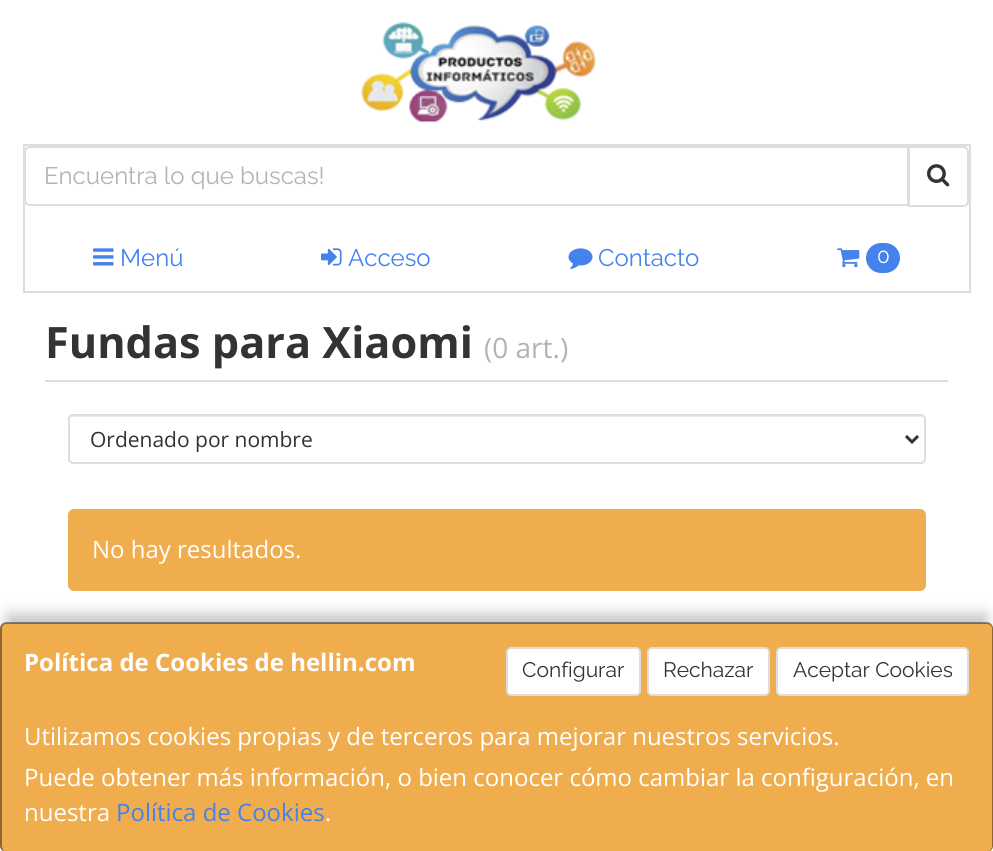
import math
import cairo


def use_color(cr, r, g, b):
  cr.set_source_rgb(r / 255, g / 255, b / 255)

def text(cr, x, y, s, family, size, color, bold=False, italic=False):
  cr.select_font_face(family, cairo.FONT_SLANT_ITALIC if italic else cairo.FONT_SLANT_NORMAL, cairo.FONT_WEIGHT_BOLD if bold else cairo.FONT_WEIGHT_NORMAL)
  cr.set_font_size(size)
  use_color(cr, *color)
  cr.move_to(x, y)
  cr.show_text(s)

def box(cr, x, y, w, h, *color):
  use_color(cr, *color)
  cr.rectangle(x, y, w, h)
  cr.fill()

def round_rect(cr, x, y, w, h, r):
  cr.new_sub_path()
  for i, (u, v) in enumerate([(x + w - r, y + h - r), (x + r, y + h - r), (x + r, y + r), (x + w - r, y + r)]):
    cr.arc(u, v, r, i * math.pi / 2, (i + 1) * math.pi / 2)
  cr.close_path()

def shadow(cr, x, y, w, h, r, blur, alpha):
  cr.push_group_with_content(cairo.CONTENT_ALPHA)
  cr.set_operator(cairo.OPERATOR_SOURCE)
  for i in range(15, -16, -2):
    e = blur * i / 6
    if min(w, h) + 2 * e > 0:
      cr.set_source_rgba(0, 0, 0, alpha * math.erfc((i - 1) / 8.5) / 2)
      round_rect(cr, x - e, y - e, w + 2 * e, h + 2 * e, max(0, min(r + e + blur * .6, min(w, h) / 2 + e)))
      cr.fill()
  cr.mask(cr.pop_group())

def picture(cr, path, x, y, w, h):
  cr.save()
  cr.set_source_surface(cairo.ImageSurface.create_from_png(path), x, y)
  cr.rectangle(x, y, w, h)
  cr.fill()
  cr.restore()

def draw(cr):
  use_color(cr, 255, 255, 255)
  cr.paint()
  picture(cr, "img_01.png", 361, 22, 235, 100)
  cr.rectangle(24, 145, 946, 147)
  use_color(cr, 221, 221, 221)
  cr.stroke()
  cr.new_path()
  cr.move_to(909, 147)
  cr.line_to(963, 147)
  cr.curve_to(966, 147, 968, 149, 968, 152)
  cr.line_to(968, 201)
  cr.curve_to(968, 204, 966, 206, 963, 206)
  cr.line_to(909, 206)
  cr.close_path()
  cr.stroke()
  use_color(cr, 255, 255, 255)
  cr.new_path()
  cr.move_to(30, 146)
  cr.line_to(909, 146)
  cr.line_to(909, 206)
  cr.line_to(30, 206)
  cr.curve_to(26.5, 206, 24, 203.5, 24, 200)
  cr.line_to(24, 152)
  cr.curve_to(24, 148.5, 26.5, 146, 30, 146)
  cr.close_path()
  cr.fill()
  use_color(cr, 236, 236, 236)
  cr.new_path()
  cr.move_to(30, 148)
  cr.line_to(908, 148)
  cr.line_to(908, 147)
  cr.line_to(31, 147)
  cr.curve_to(28, 147, 26, 149, 26, 152)
  cr.line_to(26, 153)
  cr.curve_to(26, 151, 28, 148, 30, 148)
  cr.close_path()
  cr.fill()
  cr.new_path()
  cr.move_to(30, 147)
  cr.line_to(908, 147)
  cr.line_to(908, 205)
  cr.line_to(30, 205)
  cr.curve_to(27, 205, 25, 203, 25, 200)
  cr.line_to(25, 152)
  cr.curve_to(25, 149, 27, 147, 30, 147)
  cr.close_path()
  use_color(cr, 221, 221, 221)
  cr.stroke()
  picture(cr, "img_02.png", 927, 164, 23, 23)
  picture(cr, "img_03.png", 93, 248, 21, 18)
  picture(cr, "img_04.png", 321, 248, 21, 18)
  picture(cr, "img_05.png", 568, 248, 25, 21)
  picture(cr, "img_06.png", 837, 248, 23, 20)
  use_color(cr, 69, 130, 236)
  round_rect(cr, 866, 243, 34, 30, 15)
  cr.fill()
  box(cr, 45, 380, 903, 2, 221, 221, 221)
  use_color(cr, 236, 236, 236)
  cr.new_path()
  cr.move_to(72, 417)
  cr.line_to(921, 417)
  cr.curve_to(923, 417, 924, 418, 924, 420)
  cr.curve_to(924, 418, 923, 416, 921, 416)
  cr.line_to(72, 416)
  cr.curve_to(70, 416, 69, 418, 69, 420)
  cr.curve_to(69, 418, 70, 417, 72, 417)
  cr.close_path()
  cr.fill()
  round_rect(cr, 69, 415, 856, 48, 4)
  use_color(cr, 221, 221, 221)
  cr.stroke()
  cr.new_path()
  cr.move_to(906, 436)
  cr.line_to(912, 442)
  cr.line_to(918, 436)
  use_color(cr, 51, 51, 51)
  cr.set_line_width(3)
  cr.stroke()
  use_color(cr, 240, 173, 78)
  round_rect(cr, 69, 510, 856, 80, 5)
  cr.fill_preserve()
  cr.set_line_width(2)
  cr.stroke()
  use_color(cr, 0, 0, 0)
  shadow(cr, 8, 615, 978, 215, 0, 7.5, 0.25)
  use_color(cr, 240, 173, 78)
  round_rect(cr, 0, 623, 993, 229, 6)
  cr.fill()
  cr.set_source_rgba(0, 0, 0, 0.4)
  cr.set_fill_rule(cairo.FILL_RULE_EVEN_ODD)
  cr.new_path()
  cr.move_to(6, 622)
  cr.line_to(987, 622)
  cr.curve_to(990, 622, 993, 625, 993, 628)
  cr.line_to(993, 846)
  cr.curve_to(993, 849, 990, 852, 987, 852)
  cr.line_to(6, 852)
  cr.curve_to(3, 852, 0, 849, 0, 846)
  cr.line_to(0, 628)
  cr.curve_to(0, 625, 3, 622, 6, 622)
  cr.close_path()
  cr.move_to(6, 624)
  cr.line_to(987, 624)
  cr.curve_to(989, 624, 992, 626, 992, 628)
  cr.line_to(992, 846)
  cr.curve_to(992, 849, 989, 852, 987, 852)
  cr.line_to(6, 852)
  cr.curve_to(4, 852, 2, 849, 2, 846)
  cr.line_to(2, 628)
  cr.curve_to(2, 626, 4, 624, 6, 624)
  cr.close_path()
  cr.fill()
  use_color(cr, 255, 255, 255)
  round_rect(cr, 507, 648, 133, 47, 4)
  cr.fill_preserve()
  use_color(cr, 221, 221, 221)
  cr.stroke()
  use_color(cr, 255, 255, 255)
  round_rect(cr, 648, 648, 121, 47, 4)
  cr.fill_preserve()
  use_color(cr, 221, 221, 221)
  cr.stroke()
  use_color(cr, 255, 255, 255)
  round_rect(cr, 777, 648, 191, 47, 4)
  cr.fill_preserve()
  use_color(cr, 221, 221, 221)
  cr.stroke()
  text(cr, 44, 184, "Encuentra lo que buscas!", "Raleway", 24, (179, 179, 179))
  text(cr, 120, 266, "Menú", "Raleway", 24, (69, 130, 236))
  text(cr, 348, 266, "Acceso", "Raleway", 24, (69, 130, 236))
  text(cr, 598, 266, "Contacto", "Raleway", 24, (69, 130, 236))
  text(cr, 877, 263, "0", "Raleway", 21, (255, 255, 255))
  text(cr, 45, 358, "Fundas para Xiaomi", "Open Sans", 43.25, (51, 51, 51), bold=True)
  text(cr, 484, 358, "(0 art.)", "Open Sans", 28, (179, 179, 179))
  text(cr, 90, 447, "Ordenado por nombre", "Open Sans", 21, (51, 51, 51))
  text(cr, 92, 558, "No hay resultados.", "Open Sans", 24, (255, 255, 255))
  text(cr, 24, 671, "Política de Cookies de hellin.com", "Open Sans", 24, (255, 255, 255), bold=True)
  text(cr, 522, 677, "Configurar", "Raleway", 21, (51, 51, 51))
  text(cr, 663, 677, "Rechazar", "Raleway", 21, (51, 51, 51))
  text(cr, 793, 677, "Aceptar Cookies", "Raleway", 21, (51, 51, 51))
  text(cr, 24, 745, "Utilizamos cookies propias y de terceros para mejorar nuestros servicios.", "Open Sans", 24, (255, 255, 255))
  text(cr, 24, 786, "Puede obtener más información, o bien conocer cómo cambiar la configuración, en", "Open Sans", 24, (255, 255, 255))
  text(cr, 24, 821, "nuestra", "Open Sans", 24, (255, 255, 255))
  text(cr, 116, 821, "Política de Cookies", "Open Sans", 24, (69, 130, 236))
  text(cr, 325, 821, ".", "Open Sans", 24, (255, 255, 255))


surface = cairo.ImageSurface(cairo.FORMAT_RGB24, 993, 851)
cr = cairo.Context(surface)
options = cairo.FontOptions()
options.set_hint_metrics(cairo.HINT_METRICS_OFF)
options.set_hint_style(cairo.HINT_STYLE_NONE)
cr.set_font_options(options)
cr.set_miter_limit(4)
draw(cr)
surface.write_to_png("out.png")
